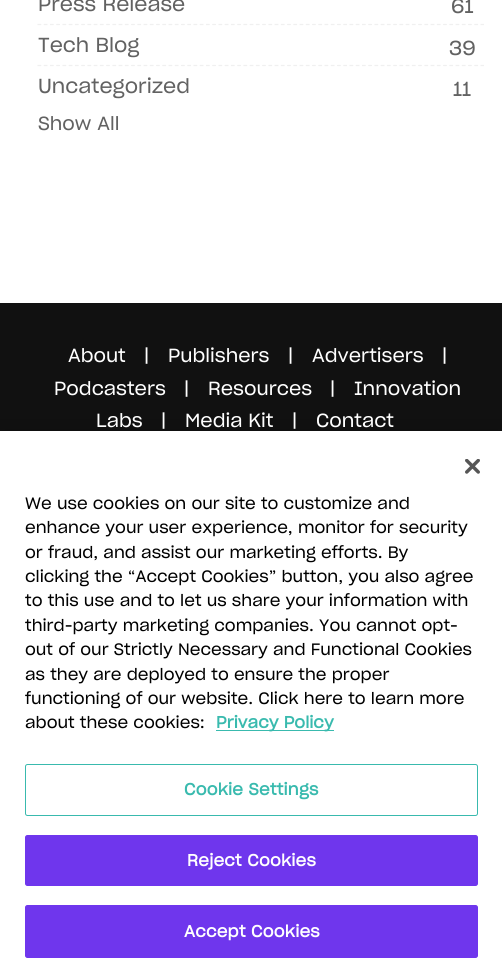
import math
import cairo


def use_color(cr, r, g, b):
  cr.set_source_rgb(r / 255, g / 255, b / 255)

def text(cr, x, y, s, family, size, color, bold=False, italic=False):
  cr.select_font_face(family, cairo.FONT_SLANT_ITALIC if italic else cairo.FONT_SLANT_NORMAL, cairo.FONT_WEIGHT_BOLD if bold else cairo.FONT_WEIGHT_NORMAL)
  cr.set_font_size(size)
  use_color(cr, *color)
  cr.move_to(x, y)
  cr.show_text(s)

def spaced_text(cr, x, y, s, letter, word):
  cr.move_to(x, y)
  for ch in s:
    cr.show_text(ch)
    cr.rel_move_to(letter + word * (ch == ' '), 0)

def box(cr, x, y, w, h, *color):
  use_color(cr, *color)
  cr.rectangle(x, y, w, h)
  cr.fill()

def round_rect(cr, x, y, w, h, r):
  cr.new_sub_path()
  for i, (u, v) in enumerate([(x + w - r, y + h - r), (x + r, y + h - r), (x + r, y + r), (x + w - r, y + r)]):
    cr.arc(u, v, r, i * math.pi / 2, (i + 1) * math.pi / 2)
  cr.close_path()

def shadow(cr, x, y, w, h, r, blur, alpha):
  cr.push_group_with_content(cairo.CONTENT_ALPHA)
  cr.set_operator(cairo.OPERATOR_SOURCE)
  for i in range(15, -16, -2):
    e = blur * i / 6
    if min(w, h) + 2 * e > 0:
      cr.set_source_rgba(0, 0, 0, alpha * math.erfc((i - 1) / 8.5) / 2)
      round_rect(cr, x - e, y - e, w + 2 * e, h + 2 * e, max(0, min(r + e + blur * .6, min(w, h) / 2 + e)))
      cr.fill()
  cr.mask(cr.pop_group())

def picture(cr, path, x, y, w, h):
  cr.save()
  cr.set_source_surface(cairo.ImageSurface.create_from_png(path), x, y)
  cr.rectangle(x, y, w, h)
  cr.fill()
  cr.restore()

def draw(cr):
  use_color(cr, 255, 255, 255)
  cr.paint()
  cr.new_path()
  cr.move_to(37.5, 24.5)
  cr.line_to(484, 24.5)
  use_color(cr, 240, 240, 240)
  cr.set_line_width(1.2)
  cr.set_dash([3.75, 2.49])
  cr.stroke()
  cr.new_path()
  cr.move_to(37.5, 65.5)
  cr.line_to(484, 65.5)
  cr.stroke()
  box(cr, 0, 303, 502, 128, 17, 17, 17)
  use_color(cr, 0, 0, 0)
  shadow(cr, 0, 431, 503, 545, 0, 11, 0.2)
  box(cr, 0, 431, 502, 545, 255, 255, 255)
  picture(cr, "img_01.png", 465, 459, 15, 15)
  box(cr, 216, 730, 118, 1, 57, 186, 174)
  round_rect(cr, 25.5, 764.5, 452, 51, 2)
  cr.set_line_width(1)
  cr.set_dash([])
  cr.stroke()
  use_color(cr, 111, 54, 237)
  round_rect(cr, 25.5, 835.5, 452, 50, 2)
  cr.fill_preserve()
  cr.stroke()
  round_rect(cr, 25.5, 905.5, 452, 52, 2)
  cr.fill_preserve()
  cr.stroke()
  text(cr, 38, 11, "Press Release", "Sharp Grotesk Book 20", 20, (98, 98, 98))
  text(cr, 451, 13, "61", "Sharp Grotesk Book 20", 20, (98, 98, 98))
  text(cr, 38, 52, "Tech Blog", "Sharp Grotesk Book 20", 20, (98, 98, 98))
  text(cr, 449, 55, "39", "Sharp Grotesk Book 20", 20, (98, 98, 98))
  text(cr, 38, 93, "Uncategorized", "Sharp Grotesk Book 20", 20, (98, 98, 98))
  text(cr, 453, 96, "11", "Sharp Grotesk Book 20", 20, (98, 98, 98))
  text(cr, 38, 130, "Show All", "Sharp Grotesk Book 20", 18.75, (98, 98, 98))
  text(cr, 68, 362, "About", "Sharp Grotesk Book 20", 18.75, (255, 255, 255))
  text(cr, 144, 362, "|", "Sharp Grotesk Book 20", 18.75, (255, 255, 255))
  text(cr, 168, 362, "Publishers", "Sharp Grotesk Book 20", 18.75, (255, 255, 255))
  text(cr, 288, 362, "|", "Sharp Grotesk Book 20", 18.75, (255, 255, 255))
  text(cr, 312, 362, "Advertisers", "Sharp Grotesk Book 20", 18.75, (255, 255, 255))
  text(cr, 442, 362, "|", "Sharp Grotesk Book 20", 18.75, (255, 255, 255))
  text(cr, 54, 395, "Podcasters", "Sharp Grotesk Book 20", 18.75, (255, 255, 255))
  text(cr, 184, 395, "|", "Sharp Grotesk Book 20", 18.75, (255, 255, 255))
  text(cr, 208, 395, "Resources", "Sharp Grotesk Book 20", 18.75, (255, 255, 255))
  text(cr, 330, 395, "|", "Sharp Grotesk Book 20", 18.75, (255, 255, 255))
  text(cr, 354, 395, "Innovation", "Sharp Grotesk Book 20", 18.75, (255, 255, 255))
  text(cr, 96, 427, "Labs", "Sharp Grotesk Book 20", 18.75, (255, 255, 255))
  text(cr, 161, 427, "|", "Sharp Grotesk Book 20", 18.75, (255, 255, 255))
  text(cr, 185, 427, "Media Kit", "Sharp Grotesk Book 20", 18.75, (255, 255, 255))
  text(cr, 292, 427, "|", "Sharp Grotesk Book 20", 18.75, (255, 255, 255))
  text(cr, 316, 427, "Contact", "Sharp Grotesk Book 20", 18.75, (255, 255, 255))
  text(cr, 25, 509, "We use cookies on our site to customize and", "Sharp Grotesk Book 20", 16.25, (0, 0, 0))
  text(cr, 25, 533, "enhance your user experience, monitor for security", "Sharp Grotesk Book 20", 16.25, (0, 0, 0))
  text(cr, 25, 558, "or fraud, and assist our marketing efforts. By", "Sharp Grotesk Book 20", 16.25, (0, 0, 0))
  text(cr, 25, 582, "clicking the “Accept Cookies” button, you also agree", "Sharp Grotesk Book 20", 16.25, (0, 0, 0))
  text(cr, 25, 606, "to this use and to let us share your information with", "Sharp Grotesk Book 20", 16.25, (0, 0, 0))
  text(cr, 25, 631, "third-party marketing companies. You cannot opt-", "Sharp Grotesk Book 20", 16.25, (0, 0, 0))
  text(cr, 25, 655, "out of our Strictly Necessary and Functional Cookies", "Sharp Grotesk Book 20", 16.25, (0, 0, 0))
  text(cr, 25, 680, "as they are deployed to ensure the proper", "Sharp Grotesk Book 20", 16.25, (0, 0, 0))
  text(cr, 25, 704, "functioning of our website. Click here to learn more", "Sharp Grotesk Book 20", 16.25, (0, 0, 0))
  text(cr, 25, 728, "about these cookies:", "Sharp Grotesk Book 20", 16.25, (0, 0, 0))
  text(cr, 216, 728, "Privacy Policy", "Sharp Grotesk Book 20", 16.25, (57, 186, 174), bold=True)
  spaced_text(cr, 184, 795, "Cookie Settings", 0.2, 0)
  use_color(cr, 255, 255, 255)
  spaced_text(cr, 187, 866, "Reject Cookies", 0.2, 0)
  spaced_text(cr, 184, 937, "Accept Cookies", 0.2, 0)


surface = cairo.ImageSurface(cairo.FORMAT_RGB24, 502, 976)
cr = cairo.Context(surface)
options = cairo.FontOptions()
options.set_hint_metrics(cairo.HINT_METRICS_OFF)
options.set_hint_style(cairo.HINT_STYLE_NONE)
cr.set_font_options(options)
cr.set_miter_limit(4)
draw(cr)
surface.write_to_png("out.png")
